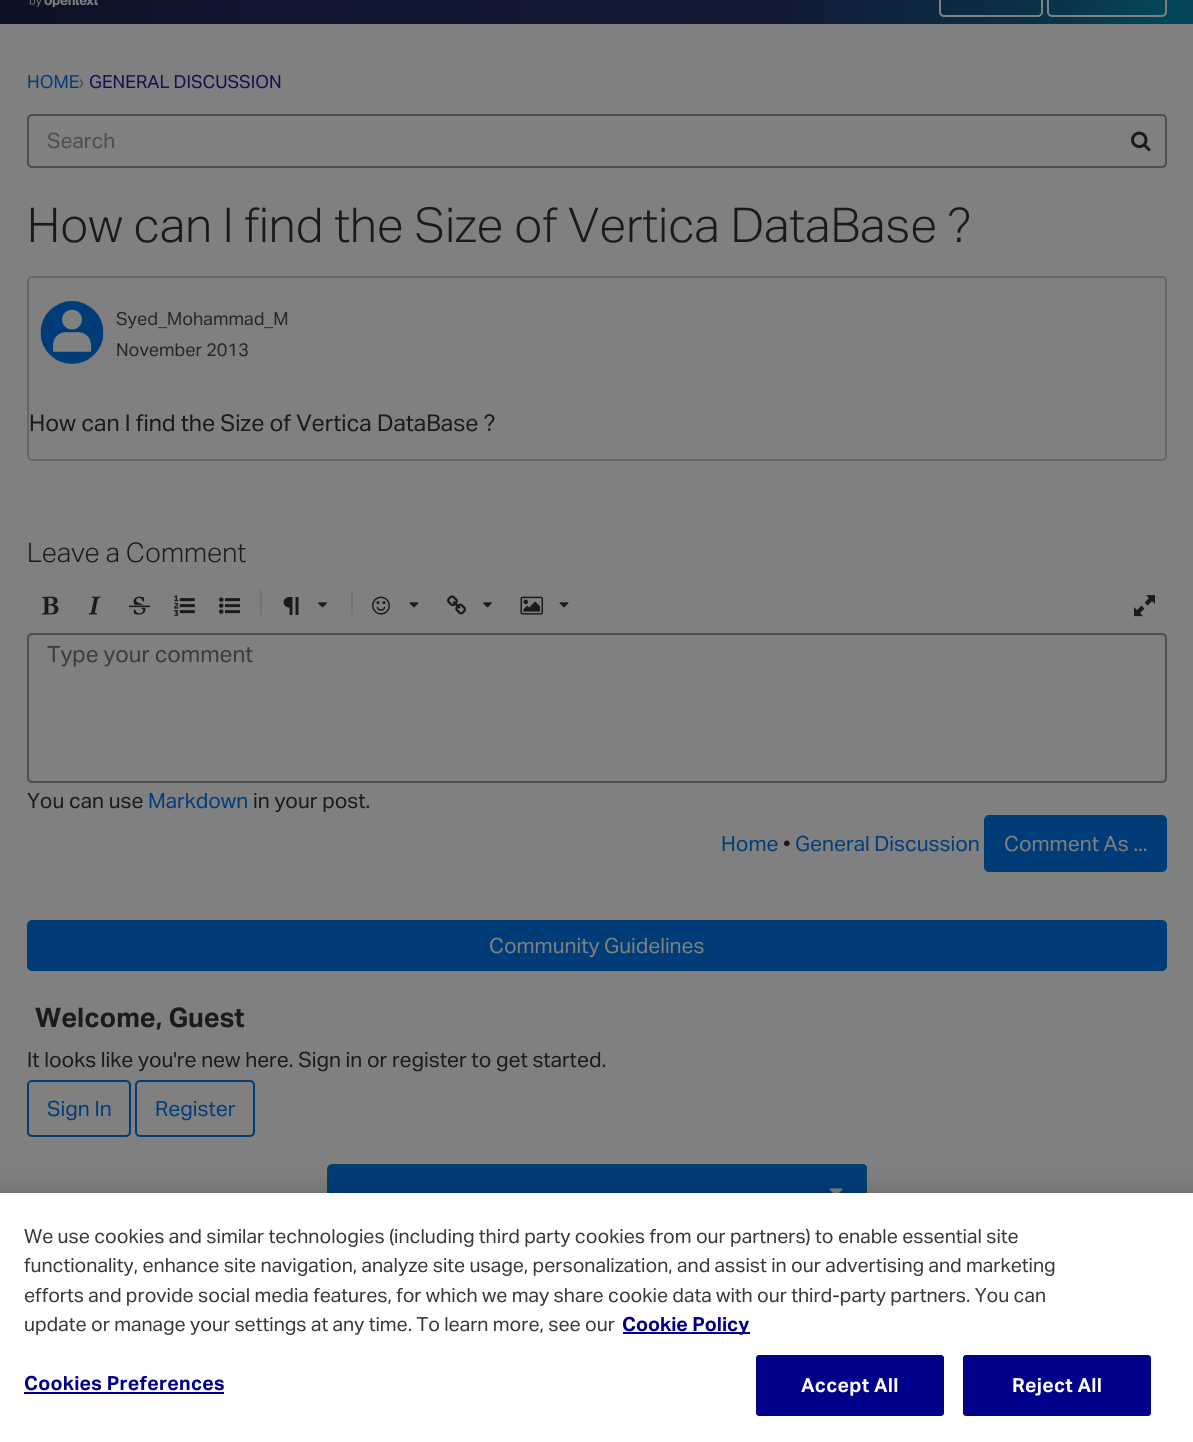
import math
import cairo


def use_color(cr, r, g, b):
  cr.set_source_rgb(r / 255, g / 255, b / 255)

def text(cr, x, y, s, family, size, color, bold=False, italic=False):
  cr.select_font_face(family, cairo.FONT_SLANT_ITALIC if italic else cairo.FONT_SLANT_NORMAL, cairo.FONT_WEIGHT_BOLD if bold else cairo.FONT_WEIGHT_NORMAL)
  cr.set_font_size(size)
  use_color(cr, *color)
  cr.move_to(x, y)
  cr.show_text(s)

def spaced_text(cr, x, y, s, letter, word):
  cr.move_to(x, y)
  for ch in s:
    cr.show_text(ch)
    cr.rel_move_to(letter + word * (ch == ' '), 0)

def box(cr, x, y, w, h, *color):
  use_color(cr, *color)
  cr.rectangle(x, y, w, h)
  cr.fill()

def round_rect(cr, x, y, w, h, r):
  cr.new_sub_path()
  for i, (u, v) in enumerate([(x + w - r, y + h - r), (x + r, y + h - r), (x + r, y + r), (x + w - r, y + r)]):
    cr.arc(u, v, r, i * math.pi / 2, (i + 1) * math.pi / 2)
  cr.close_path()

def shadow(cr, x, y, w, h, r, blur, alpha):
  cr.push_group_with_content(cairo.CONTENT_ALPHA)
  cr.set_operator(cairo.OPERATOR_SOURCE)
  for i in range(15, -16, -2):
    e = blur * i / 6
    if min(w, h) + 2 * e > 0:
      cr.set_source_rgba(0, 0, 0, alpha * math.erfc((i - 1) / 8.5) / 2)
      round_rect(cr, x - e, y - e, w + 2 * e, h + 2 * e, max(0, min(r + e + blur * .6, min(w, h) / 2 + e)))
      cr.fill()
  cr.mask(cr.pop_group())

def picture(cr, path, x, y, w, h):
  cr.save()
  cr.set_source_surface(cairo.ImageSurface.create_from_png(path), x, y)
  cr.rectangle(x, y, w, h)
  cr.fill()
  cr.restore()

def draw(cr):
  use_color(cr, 128, 128, 128)
  cr.paint()
  gradient = cairo.LinearGradient(0, -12, 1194, -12)
  gradient.add_color_stop_rgba(0, 0.051, 0.067, 0.145, 1)
  gradient.add_color_stop_rgba(0.22, 0.067, 0.09, 0.192, 1)
  gradient.add_color_stop_rgba(0.65, 0.071, 0.102, 0.208, 1)
  gradient.add_color_stop_rgba(0.89, 0.039, 0.2, 0.29, 1)
  gradient.add_color_stop_rgba(0.97, 0.016, 0.275, 0.349, 1)
  cr.set_source(gradient)
  cr.rectangle(0, 0, 1193, 24)
  cr.fill()
  picture(cr, "img_01.png", 29, 0, 69, 7)
  round_rect(cr, 940, -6, 102, 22, 4)
  use_color(cr, 128, 128, 128)
  cr.stroke()
  round_rect(cr, 1048, -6, 118, 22, 4)
  cr.stroke()
  round_rect(cr, 28, 115, 1138, 52, 4)
  use_color(cr, 77, 77, 77)
  cr.stroke()
  picture(cr, "img_02.png", 1131, 131, 20, 21)
  round_rect(cr, 28, 277, 1138, 183, 4)
  use_color(cr, 103, 103, 103)
  cr.stroke()
  picture(cr, "img_03.png", 40, 301, 64, 63)
  picture(cr, "img_04.png", 42, 596, 17, 19)
  picture(cr, "img_05.png", 88, 596, 13, 19)
  picture(cr, "img_06.png", 129, 596, 21, 19)
  picture(cr, "img_07.png", 174, 595, 21, 22)
  picture(cr, "img_08.png", 219, 597, 21, 17)
  box(cr, 260, 590, 2, 25, 115, 115, 115)
  picture(cr, "img_09.png", 283, 597, 16, 18)
  picture(cr, "img_10.png", 318, 602, 9, 6)
  box(cr, 351, 590, 2, 25, 115, 115, 115)
  picture(cr, "img_11.png", 372, 596, 18, 19)
  picture(cr, "img_12.png", 409, 602, 10, 6)
  picture(cr, "img_13.png", 447, 595, 20, 20)
  picture(cr, "img_10.png", 483, 602, 9, 6)
  picture(cr, "img_14.png", 520, 596, 23, 19)
  picture(cr, "img_12.png", 559, 602, 10, 6)
  picture(cr, "img_15.png", 1134, 595, 21, 22)
  round_rect(cr, 28, 634, 1138, 148, 4)
  use_color(cr, 77, 77, 77)
  cr.stroke()
  use_color(cr, 0, 61, 120)
  round_rect(cr, 985, 816, 181, 55, 4)
  cr.fill_preserve()
  cr.stroke()
  round_rect(cr, 28, 921, 1138, 49, 4)
  cr.fill_preserve()
  cr.stroke()
  round_rect(cr, 28, 1081, 102, 55, 4)
  cr.stroke()
  round_rect(cr, 136, 1081, 118, 55, 4)
  cr.stroke()
  round_rect(cr, 327, 1164, 540, 57, 8)
  cr.fill()
  round_rect(cr, 328, 1165, 538, 55, 4)
  use_color(cr, 0, 70, 93)
  cr.stroke()
  cr.set_fill_rule(cairo.FILL_RULE_EVEN_ODD)
  cr.new_path()
  cr.move_to(807, 1164)
  cr.line_to(862, 1164)
  cr.curve_to(865, 1164, 867, 1166, 867, 1168)
  cr.line_to(867, 1216)
  cr.curve_to(867, 1219, 865, 1221, 862, 1221)
  cr.line_to(807, 1221)
  cr.close_path()
  cr.move_to(807, 1166)
  cr.line_to(862, 1166)
  cr.curve_to(864, 1166, 866, 1167, 866, 1168)
  cr.line_to(866, 1216)
  cr.curve_to(866, 1218, 864, 1220, 862, 1220)
  cr.line_to(807, 1220)
  cr.close_path()
  cr.fill()
  box(cr, 862, 1166, 4, 27, 0, 61, 120)
  picture(cr, "img_16.png", 829, 1188, 14, 5)
  use_color(cr, 0, 0, 0)
  shadow(cr, 0, 1193, 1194, 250, 0, 13.5, 0.2)
  box(cr, 0, 1193, 1193, 249, 255, 255, 255)
  box(cr, 623, 1332, 127, 2, 0, 0, 139)
  box(cr, 24, 1392, 200, 2, 0, 0, 139)
  round_rect(cr, 757, 1356, 186, 59, 2)
  cr.fill_preserve()
  cr.stroke()
  round_rect(cr, 964, 1356, 186, 59, 2)
  cr.fill_preserve()
  cr.stroke()
  text(cr, 27, 88, "HOME", "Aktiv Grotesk", 18, (0, 61, 120))
  text(cr, 79, 88, "›", "Aktiv Grotesk", 18, (77, 77, 77))
  text(cr, 89, 88, "GENERAL DISCUSSION", "Aktiv Grotesk", 18, (18, 14, 83))
  text(cr, 47, 148, "Search", "Aktiv Grotesk", 21, (77, 77, 77))
  text(cr, 27, 242, "How can I find the Size of Vertica DataBase ?", "Aktiv Grotesk Light", 48, (26, 26, 26))
  text(cr, 116, 325, "Syed_Mohammad_M", "Aktiv Grotesk", 18, (38, 38, 38))
  text(cr, 116, 356, "November 2013", "Aktiv Grotesk", 18, (38, 38, 38))
  text(cr, 29, 431, "How can I find the Size of Vertica DataBase ?", "Aktiv Grotesk", 23.1, (26, 26, 26))
  text(cr, 27, 562, "Leave a Comment", "Aktiv Grotesk Light", 27, (26, 26, 26))
  text(cr, 47, 662, "Type your comment", "Aktiv Grotesk", 22.5, (59, 59, 59))
  text(cr, 27, 808, "You can use", "Aktiv Grotesk", 21, (26, 26, 26))
  text(cr, 148, 808, "Markdown", "Aktiv Grotesk", 21, (0, 61, 120))
  text(cr, 253, 808, "in your post.", "Aktiv Grotesk", 21, (26, 26, 26))
  text(cr, 721, 851, "Home", "Aktiv Grotesk", 21, (0, 61, 120))
  text(cr, 783, 851, "•", "Aktiv Grotesk", 21, (26, 26, 26))
  text(cr, 795, 851, "General Discussion", "Aktiv Grotesk", 21, (0, 61, 120))
  text(cr, 1004, 851, "Comment As ...", "Aktiv Grotesk", 21, (128, 128, 128))
  text(cr, 489, 953, "Community Guidelines", "Aktiv Grotesk", 21, (128, 128, 128))
  text(cr, 35, 1027, "Welcome, Guest", "Aktiv Grotesk", 27, (26, 26, 26), bold=True)
  text(cr, 27, 1067, "It looks like you're new here. Sign in or register to get started.", "Aktiv Grotesk", 21, (26, 26, 26))
  text(cr, 47, 1116, "Sign In", "Aktiv Grotesk", 21, (0, 61, 120))
  text(cr, 155, 1116, "Register", "Aktiv Grotesk", 21, (0, 61, 120))
  text(cr, 24, 1243, "We use cookies and similar technologies (including third party cookies from our partners) to enable essential site", "Aktiv Grotesk", 19.5, (53, 57, 61))
  text(cr, 24, 1272, "functionality, enhance site navigation, analyze site usage, personalization, and assist in our advertising and marketing", "Aktiv Grotesk", 19.5, (53, 57, 61))
  text(cr, 24, 1302, "efforts and provide social media features, for which we may share cookie data with our third-party partners. You can", "Aktiv Grotesk", 19.5, (53, 57, 61))
  text(cr, 24, 1331, "update or manage your settings at any time. To learn more, see our", "Aktiv Grotesk", 19.5, (53, 57, 61))
  text(cr, 622, 1331, "Cookie Policy", "Aktiv Grotesk", 19.5, (0, 0, 139), bold=True)
  spaced_text(cr, 24, 1390, "Cookies Preferences", 0.25, 0)
  use_color(cr, 255, 255, 255)
  spaced_text(cr, 801, 1392, "Accept All", 0.25, 0)
  spaced_text(cr, 1012, 1392, "Reject All", 0.25, 0)


surface = cairo.ImageSurface(cairo.FORMAT_RGB24, 1193, 1442)
cr = cairo.Context(surface)
options = cairo.FontOptions()
options.set_hint_metrics(cairo.HINT_METRICS_OFF)
options.set_hint_style(cairo.HINT_STYLE_NONE)
cr.set_font_options(options)
cr.set_miter_limit(4)
draw(cr)
surface.write_to_png("out.png")
